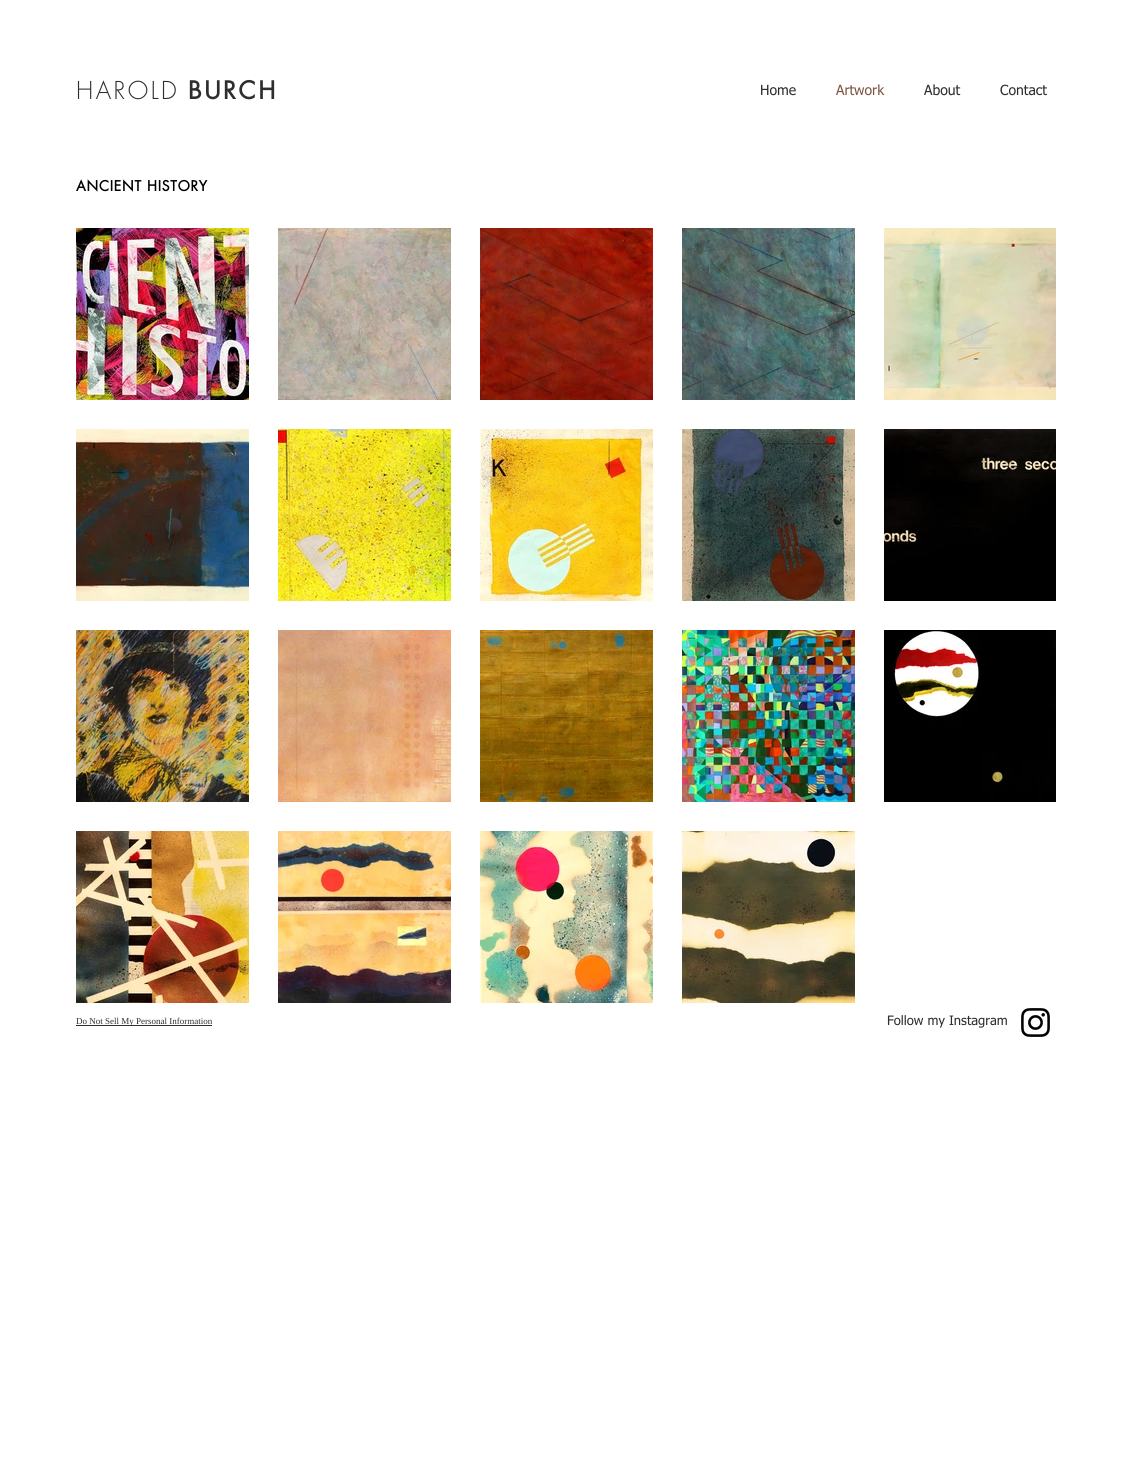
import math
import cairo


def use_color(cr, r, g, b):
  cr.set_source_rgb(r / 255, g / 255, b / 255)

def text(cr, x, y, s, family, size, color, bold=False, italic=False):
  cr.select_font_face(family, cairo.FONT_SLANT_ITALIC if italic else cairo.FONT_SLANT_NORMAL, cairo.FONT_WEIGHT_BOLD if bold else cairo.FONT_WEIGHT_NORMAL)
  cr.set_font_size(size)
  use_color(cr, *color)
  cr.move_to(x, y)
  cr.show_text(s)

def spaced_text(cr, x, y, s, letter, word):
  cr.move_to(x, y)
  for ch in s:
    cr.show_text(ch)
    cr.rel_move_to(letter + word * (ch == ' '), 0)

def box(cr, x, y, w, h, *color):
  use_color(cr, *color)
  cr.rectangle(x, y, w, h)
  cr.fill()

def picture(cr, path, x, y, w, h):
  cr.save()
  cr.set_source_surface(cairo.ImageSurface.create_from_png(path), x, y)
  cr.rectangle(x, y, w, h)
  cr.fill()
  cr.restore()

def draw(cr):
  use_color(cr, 255, 255, 255)
  cr.paint()
  picture(cr, "img_01.png", 76, 228, 173, 172)
  picture(cr, "img_02.png", 278, 228, 173, 172)
  picture(cr, "img_03.png", 480, 228, 173, 172)
  picture(cr, "img_04.png", 682, 228, 173, 172)
  picture(cr, "img_05.png", 884, 228, 172, 172)
  picture(cr, "img_06.png", 76, 429, 173, 172)
  picture(cr, "img_07.png", 278, 429, 173, 172)
  picture(cr, "img_08.png", 480, 429, 173, 172)
  picture(cr, "img_09.png", 682, 429, 173, 172)
  picture(cr, "img_10.png", 884, 429, 172, 172)
  picture(cr, "img_11.png", 76, 630, 173, 172)
  picture(cr, "img_12.png", 278, 630, 173, 172)
  picture(cr, "img_13.png", 480, 630, 173, 172)
  picture(cr, "img_14.png", 682, 630, 173, 172)
  picture(cr, "img_15.png", 884, 630, 172, 172)
  picture(cr, "img_16.png", 76, 831, 173, 172)
  picture(cr, "img_17.png", 278, 831, 173, 172)
  picture(cr, "img_18.png", 480, 831, 173, 172)
  picture(cr, "img_19.png", 682, 831, 173, 172)
  box(cr, 76, 1025, 136, 1, 46, 46, 46)
  picture(cr, "img_20.png", 1021, 1008, 29, 29)
  cr.select_font_face("futura Light")
  cr.set_font_size(24)
  spaced_text(cr, 76, 99, "HAROLD", 2.5, 0)
  cr.select_font_face("futura", cairo.FONT_SLANT_NORMAL, cairo.FONT_WEIGHT_BOLD)
  spaced_text(cr, 188, 99, "BURCH", 2.5, 0)
  text(cr, 760, 95, "Home", "tahoma", 14, (46, 46, 46))
  text(cr, 836, 95, "Artwork", "tahoma", 14, (126, 85, 65))
  text(cr, 924, 95, "About", "tahoma", 14, (46, 46, 46))
  text(cr, 1000, 95, "Contact", "tahoma", 14, (46, 46, 46))
  cr.select_font_face("futura", cairo.FONT_SLANT_NORMAL, cairo.FONT_WEIGHT_BOLD)
  use_color(cr, 0, 0, 0)
  spaced_text(cr, 76, 191, "ANCIENT HISTORY", 0.75, 0)
  text(cr, 76, 1024, "Do Not Sell My Personal Information", "Liberation Serif", 9, (46, 46, 46))
  text(cr, 887, 1025, "Follow my Instagram", "tahoma", 13, (46, 46, 46))


surface = cairo.ImageSurface(cairo.FORMAT_RGB24, 1131, 1460)
cr = cairo.Context(surface)
options = cairo.FontOptions()
options.set_hint_metrics(cairo.HINT_METRICS_OFF)
options.set_hint_style(cairo.HINT_STYLE_NONE)
cr.set_font_options(options)
cr.set_miter_limit(4)
draw(cr)
surface.write_to_png("out.png")
